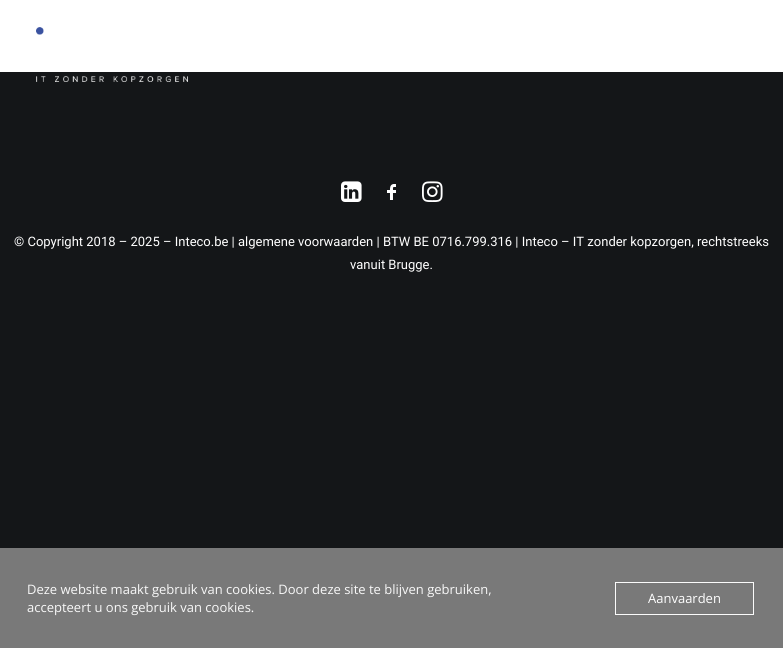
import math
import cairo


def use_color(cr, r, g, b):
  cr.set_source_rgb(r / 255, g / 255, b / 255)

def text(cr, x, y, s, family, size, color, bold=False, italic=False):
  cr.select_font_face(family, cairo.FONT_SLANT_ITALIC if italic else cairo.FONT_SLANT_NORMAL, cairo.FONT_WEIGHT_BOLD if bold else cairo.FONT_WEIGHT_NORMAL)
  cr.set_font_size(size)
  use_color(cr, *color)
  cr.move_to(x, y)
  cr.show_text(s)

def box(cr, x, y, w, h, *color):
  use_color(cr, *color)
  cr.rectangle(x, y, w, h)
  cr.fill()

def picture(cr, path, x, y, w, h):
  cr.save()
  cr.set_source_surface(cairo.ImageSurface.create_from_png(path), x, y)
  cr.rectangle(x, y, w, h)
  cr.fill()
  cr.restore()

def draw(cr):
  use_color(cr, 20, 22, 24)
  cr.paint()
  box(cr, 0, 548, 783, 100, 121, 121, 121)
  box(cr, 0, 0, 783, 72, 255, 255, 255)
  picture(cr, "img_01.png", 36, 27, 152, 55)
  picture(cr, "img_02.png", 341, 181, 21, 21)
  picture(cr, "img_03.png", 387, 184, 9, 16)
  picture(cr, "img_04.png", 422, 181, 21, 21)
  cr.rectangle(615.5, 582.5, 138, 32)
  use_color(cr, 251, 251, 251)
  cr.set_line_width(1)
  cr.stroke()
  text(cr, 14, 246, "© Copyright 2018 – 2025 – Inteco.be | algemene voorwaarden | BTW BE 0716.799.316 | Inteco – IT zonder kopzorgen, rechtstreeks", "Roboto", 13, (255, 255, 255))
  text(cr, 350, 269, "vanuit Brugge.", "Roboto", 13, (255, 255, 255))
  text(cr, 27, 594, "Deze website maakt gebruik van cookies. Door deze site te blijven gebruiken,", "Open Sans", 13, (248, 248, 248))
  text(cr, 27, 612, "accepteert u ons gebruik van cookies.", "Open Sans", 13, (248, 248, 248))
  text(cr, 648, 603, "Aanvaarden", "Open Sans", 13, (255, 255, 255))


surface = cairo.ImageSurface(cairo.FORMAT_RGB24, 783, 648)
cr = cairo.Context(surface)
options = cairo.FontOptions()
options.set_hint_metrics(cairo.HINT_METRICS_OFF)
options.set_hint_style(cairo.HINT_STYLE_NONE)
cr.set_font_options(options)
cr.set_miter_limit(4)
draw(cr)
surface.write_to_png("out.png")
